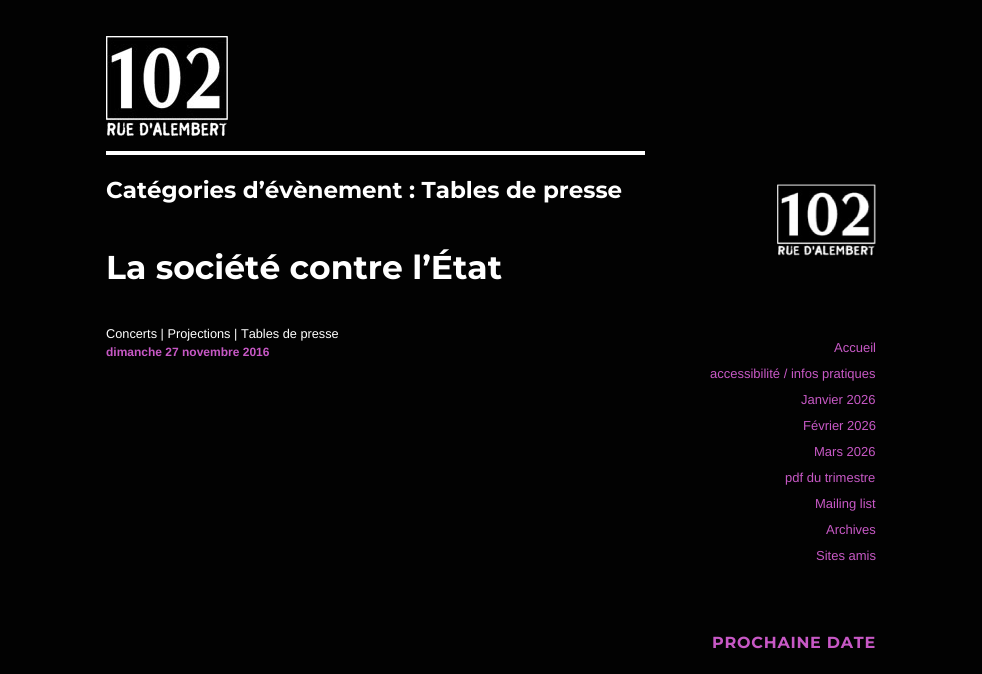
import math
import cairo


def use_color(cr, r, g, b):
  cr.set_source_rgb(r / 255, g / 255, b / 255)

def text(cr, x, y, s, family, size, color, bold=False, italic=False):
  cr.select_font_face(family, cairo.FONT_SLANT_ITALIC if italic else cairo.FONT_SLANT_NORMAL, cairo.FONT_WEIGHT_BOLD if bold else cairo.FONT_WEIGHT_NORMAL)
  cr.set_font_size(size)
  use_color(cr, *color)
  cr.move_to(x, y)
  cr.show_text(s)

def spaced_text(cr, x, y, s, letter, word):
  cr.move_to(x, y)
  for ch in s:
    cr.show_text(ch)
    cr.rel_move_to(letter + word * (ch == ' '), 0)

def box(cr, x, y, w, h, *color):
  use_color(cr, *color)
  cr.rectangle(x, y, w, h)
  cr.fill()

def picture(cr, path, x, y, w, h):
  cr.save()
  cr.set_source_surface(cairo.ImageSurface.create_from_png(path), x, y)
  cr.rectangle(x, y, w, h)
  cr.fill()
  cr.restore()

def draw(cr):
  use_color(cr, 2, 2, 2)
  cr.paint()
  picture(cr, "img_01.png", 106, 36, 122, 100)
  box(cr, 106, 151, 539, 4, 255, 255, 255)
  picture(cr, "img_02.png", 777, 184, 99, 72)
  text(cr, 106, 198, "Catégories d’évènement : Tables de presse", "Montserrat Thin", 23, (255, 255, 255))
  text(cr, 106, 279, "La société contre l’État", "Montserrat Thin", 33, (255, 255, 255))
  text(cr, 106, 338, "Concerts | Projections | Tables de presse", "Liberation Sans", 12.75, (255, 255, 255))
  text(cr, 106, 356, "dimanche 27 novembre 2016", "Liberation Sans", 12, (199, 88, 197), bold=True)
  text(cr, 834, 352, "Accueil", "Liberation Sans", 13, (199, 88, 197))
  text(cr, 710, 378, "accessibilité / infos pratiques", "Liberation Sans", 13, (199, 88, 197))
  text(cr, 801, 404, "Janvier 2026", "Liberation Sans", 13, (199, 88, 197))
  text(cr, 803, 430, "Février 2026", "Liberation Sans", 13, (199, 88, 197))
  text(cr, 814, 456, "Mars 2026", "Liberation Sans", 13, (199, 88, 197))
  text(cr, 785, 482, "pdf du trimestre", "Liberation Sans", 13, (199, 88, 197))
  text(cr, 815, 508, "Mailing list", "Liberation Sans", 13, (199, 88, 197))
  text(cr, 826, 534, "Archives", "Liberation Sans", 13, (199, 88, 197))
  text(cr, 816, 560, "Sites amis", "Liberation Sans", 13, (199, 88, 197))
  cr.select_font_face("Montserrat Thin")
  cr.set_font_size(16)
  spaced_text(cr, 712, 648, "PROCHAINE DATE", 0.75, 0)


surface = cairo.ImageSurface(cairo.FORMAT_RGB24, 982, 674)
cr = cairo.Context(surface)
options = cairo.FontOptions()
options.set_hint_metrics(cairo.HINT_METRICS_OFF)
options.set_hint_style(cairo.HINT_STYLE_NONE)
cr.set_font_options(options)
cr.set_miter_limit(4)
draw(cr)
surface.write_to_png("out.png")
